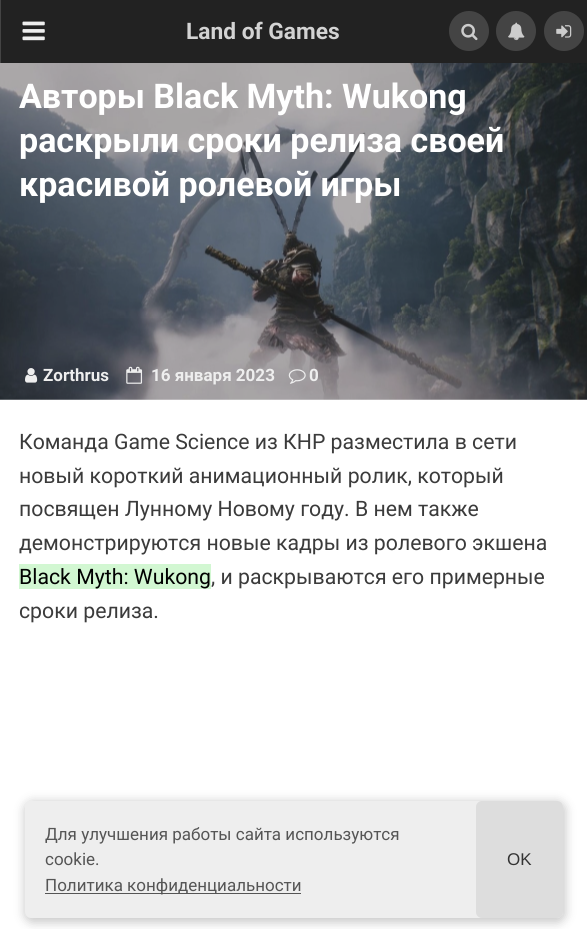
import math
import cairo


def use_color(cr, r, g, b):
  cr.set_source_rgb(r / 255, g / 255, b / 255)

def text(cr, x, y, s, family, size, color, bold=False, italic=False):
  cr.select_font_face(family, cairo.FONT_SLANT_ITALIC if italic else cairo.FONT_SLANT_NORMAL, cairo.FONT_WEIGHT_BOLD if bold else cairo.FONT_WEIGHT_NORMAL)
  cr.set_font_size(size)
  use_color(cr, *color)
  cr.move_to(x, y)
  cr.show_text(s)

def box(cr, x, y, w, h, *color):
  use_color(cr, *color)
  cr.rectangle(x, y, w, h)
  cr.fill()

def round_rect(cr, x, y, w, h, r):
  cr.new_sub_path()
  for i, (u, v) in enumerate([(x + w - r, y + h - r), (x + r, y + h - r), (x + r, y + r), (x + w - r, y + r)]):
    cr.arc(u, v, r, i * math.pi / 2, (i + 1) * math.pi / 2)
  cr.close_path()

def shadow(cr, x, y, w, h, r, blur, alpha):
  cr.push_group_with_content(cairo.CONTENT_ALPHA)
  cr.set_operator(cairo.OPERATOR_SOURCE)
  for i in range(15, -16, -2):
    e = blur * i / 6
    if min(w, h) + 2 * e > 0:
      cr.set_source_rgba(0, 0, 0, alpha * math.erfc((i - 1) / 8.5) / 2)
      round_rect(cr, x - e, y - e, w + 2 * e, h + 2 * e, max(0, min(r + e + blur * .6, min(w, h) / 2 + e)))
      cr.fill()
  cr.mask(cr.pop_group())

def picture(cr, path, x, y, w, h):
  cr.save()
  cr.set_source_surface(cairo.ImageSurface.create_from_png(path), x, y)
  cr.rectangle(x, y, w, h)
  cr.fill()
  cr.restore()

def draw(cr):
  use_color(cr, 255, 255, 255)
  cr.paint()
  box(cr, 1, 0, 586, 63, 34, 34, 34)
  box(cr, 0, 0, 1, 63, 68, 68, 68)
  picture(cr, "img_01.png", 22, 21, 23, 20)
  cr.arc(469, 31, 20, 0, 2 * math.pi)
  cr.fill()
  picture(cr, "img_02.png", 461, 23, 17, 18)
  cr.arc(516, 31, 20, 0, 2 * math.pi)
  cr.fill()
  picture(cr, "img_03.png", 508, 22, 17, 19)
  cr.arc(564, 31, 20, 0, 2 * math.pi)
  cr.fill()
  picture(cr, "img_04.png", 556, 25, 16, 13)
  picture(cr, "img_05.png", 0, 63, 587, 337)
  picture(cr, "img_06.png", 25, 368, 13, 15)
  picture(cr, "img_07.png", 126, 366, 17, 18)
  picture(cr, "img_08.png", 288, 369, 18, 15)
  box(cr, 19, 564, 192, 25, 210, 247, 210)
  use_color(cr, 0, 0, 0)
  shadow(cr, 24, 801, 542, 122, 9, 5, 0.2)
  use_color(cr, 238, 238, 238)
  round_rect(cr, 25, 801, 538, 117, 6)
  cr.fill()
  box(cr, 45, 893, 256, 1, 85, 85, 85)
  use_color(cr, 221, 221, 221)
  round_rect(cr, 476, 801, 87, 117, 6)
  cr.fill()
  text(cr, 186, 39, "Land of Games", "Roboto", 22.75, (211, 211, 211), bold=True)
  text(cr, 19, 108, "Авторы Black Myth: Wukong", "Roboto", 34, (255, 255, 255), bold=True)
  text(cr, 19, 152, "раскрыли сроки релиза своей", "Roboto", 34, (255, 255, 255), bold=True)
  text(cr, 19, 196, "красивой ролевой игры", "Roboto", 34, (255, 255, 255), bold=True)
  text(cr, 43, 381, "Zorthrus", "Roboto", 17, (238, 238, 238), bold=True)
  text(cr, 151, 381, "16 января 2023", "Roboto", 17, (238, 238, 238), bold=True)
  text(cr, 309, 381, "0", "Roboto", 17, (238, 238, 238), bold=True)
  text(cr, 19, 449, "Команда Game Science из КНР разместила в сети", "Roboto", 21.25, (59, 59, 59))
  text(cr, 19, 483, "новый короткий анимационный ролик, который", "Roboto", 21.25, (59, 59, 59))
  text(cr, 19, 516, "посвящен Лунному Новому году. В нем также", "Roboto", 21.25, (59, 59, 59))
  text(cr, 19, 550, "демонстрируются новые кадры из ролевого экшена", "Roboto", 21.25, (59, 59, 59))
  text(cr, 19, 584, "Black Myth: Wukong", "Roboto", 21.25, (0, 0, 0))
  text(cr, 211, 584, ", и раскрываются его примерные", "Roboto", 21.25, (59, 59, 59))
  text(cr, 19, 618, "сроки релиза.", "Roboto", 21.25, (59, 59, 59))
  text(cr, 45, 840, "Для улучшения работы сайта используются", "Roboto", 17, (85, 85, 85))
  text(cr, 45, 865, "cookie.", "Roboto", 17, (85, 85, 85))
  text(cr, 45, 891, "Политика конфиденциальности", "Roboto", 17, (85, 85, 85))
  text(cr, 507, 865, "OK", "Liberation Sans", 17, (51, 51, 51))


surface = cairo.ImageSurface(cairo.FORMAT_RGB24, 587, 929)
cr = cairo.Context(surface)
options = cairo.FontOptions()
options.set_hint_metrics(cairo.HINT_METRICS_OFF)
options.set_hint_style(cairo.HINT_STYLE_NONE)
cr.set_font_options(options)
cr.set_miter_limit(4)
draw(cr)
surface.write_to_png("out.png")
